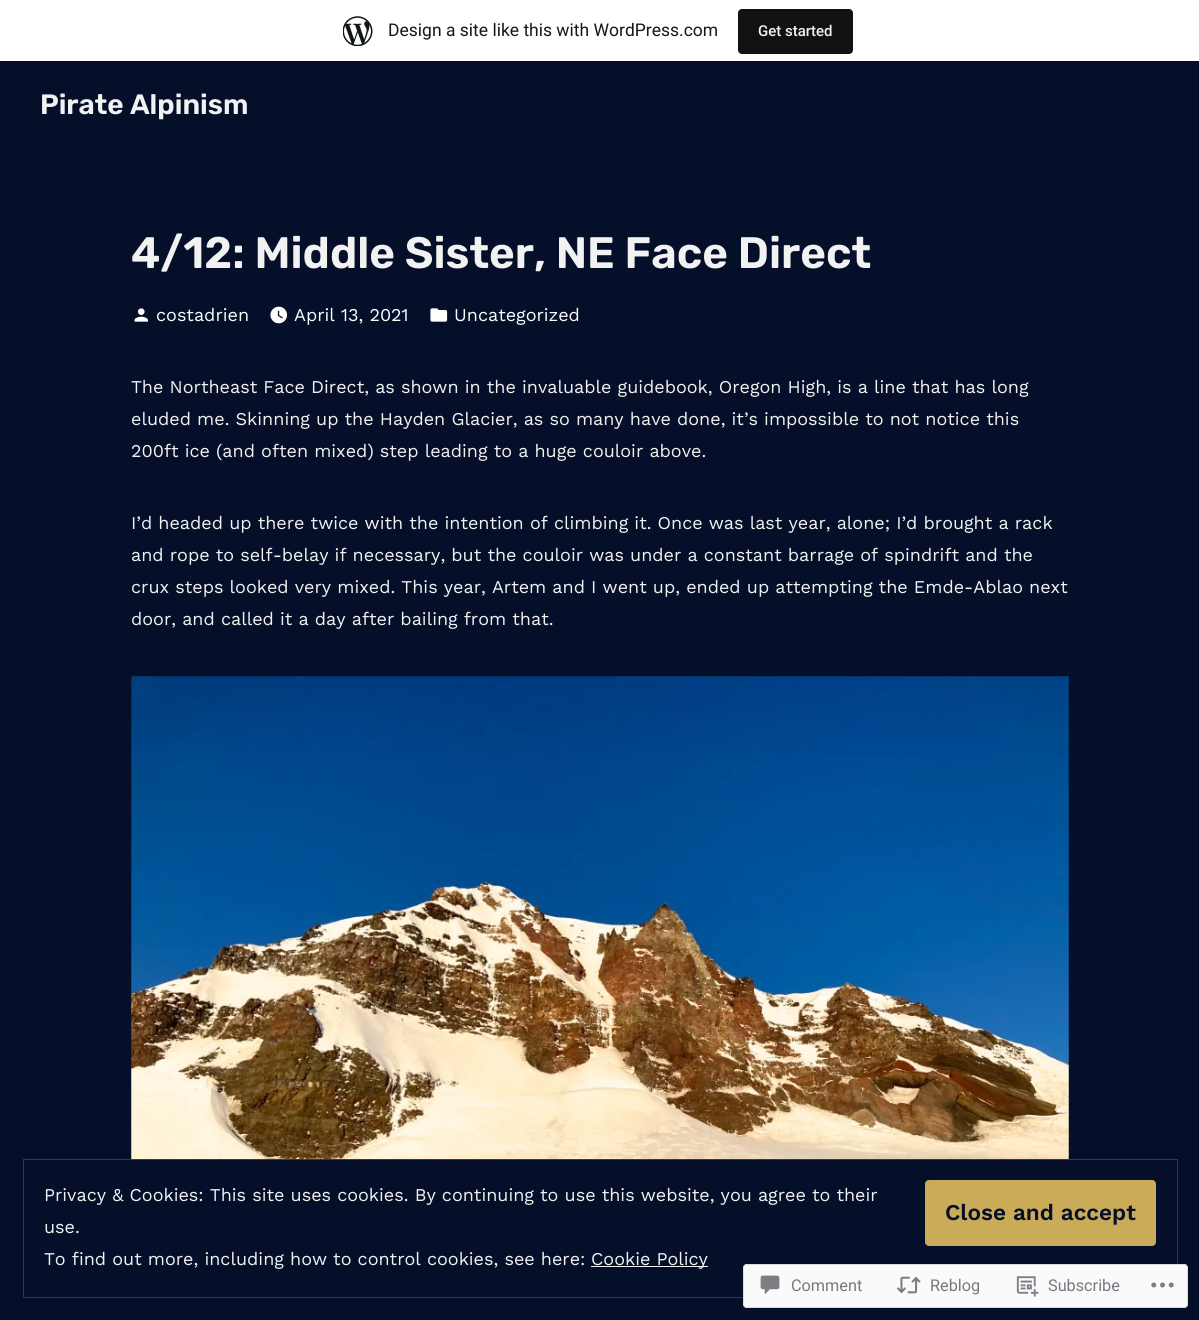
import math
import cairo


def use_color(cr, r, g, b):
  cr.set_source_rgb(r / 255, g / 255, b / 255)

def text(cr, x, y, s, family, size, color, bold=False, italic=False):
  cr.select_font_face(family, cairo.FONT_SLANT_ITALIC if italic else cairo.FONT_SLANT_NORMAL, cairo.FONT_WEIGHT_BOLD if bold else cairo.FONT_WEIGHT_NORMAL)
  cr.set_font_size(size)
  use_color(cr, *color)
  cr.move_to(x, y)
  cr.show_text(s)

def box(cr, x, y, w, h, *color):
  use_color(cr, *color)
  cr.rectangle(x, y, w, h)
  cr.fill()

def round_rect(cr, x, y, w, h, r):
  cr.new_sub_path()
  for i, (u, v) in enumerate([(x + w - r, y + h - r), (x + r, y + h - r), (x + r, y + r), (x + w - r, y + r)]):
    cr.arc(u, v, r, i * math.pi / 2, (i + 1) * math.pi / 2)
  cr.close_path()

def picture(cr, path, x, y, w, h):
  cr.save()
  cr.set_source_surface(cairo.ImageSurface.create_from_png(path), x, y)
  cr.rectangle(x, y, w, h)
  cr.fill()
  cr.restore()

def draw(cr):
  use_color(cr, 6, 15, 41)
  cr.paint()
  use_color(cr, 6, 14, 38)
  cr.new_path()
  cr.move_to(1, 61)
  cr.line_to(1, 65)
  cr.line_to(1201, 65)
  cr.line_to(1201, 4)
  cr.line_to(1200, 4)
  cr.line_to(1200, 61)
  cr.close_path()
  cr.fill()
  box(cr, 0, 0, 1199, 61, 255, 255, 255)
  picture(cr, "img_01.png", 343, 16, 30, 30)
  use_color(cr, 17, 17, 17)
  round_rect(cr, 738, 9, 115, 45, 4)
  cr.fill()
  picture(cr, "img_02.png", 134, 308, 14, 14)
  picture(cr, "img_03.png", 270, 306, 18, 18)
  picture(cr, "img_04.png", 430, 308, 18, 14)
  picture(cr, "img_05.png", 131, 676, 938, 483)
  cr.rectangle(23.5, 1159.5, 1154, 138)
  use_color(cr, 53, 58, 70)
  cr.set_line_width(1)
  cr.stroke()
  use_color(cr, 202, 171, 87)
  round_rect(cr, 925, 1180, 231, 66, 4)
  cr.fill()
  box(cr, 591, 1266, 117, 1, 242, 242, 242)
  cr.set_source_rgba(1, 1, 1, 0.98)
  round_rect(cr, 743, 1264, 445, 44, 4)
  cr.fill()
  round_rect(cr, 743.5, 1264.5, 444, 43, 3.5)
  cr.set_source_rgba(0.863, 0.863, 0.871, 0.98)
  cr.stroke()
  picture(cr, "img_06.png", 760, 1275, 20, 20)
  picture(cr, "img_07.png", 896, 1276, 25, 18)
  picture(cr, "img_08.png", 1016, 1276, 23, 21)
  picture(cr, "img_09.png", 1151, 1282, 23, 6)
  text(cr, 388, 36, "Design a site like this with WordPress.com", "Roboto", 17.5, (23, 23, 23))
  text(cr, 758, 36, "Get started", "Roboto Medium", 15, (242, 242, 242))
  text(cr, 40, 114, "Pirate Alpinism", "Rubik SemiBold", 28, (242, 242, 242))
  text(cr, 131, 268, "4/12: Middle Sister, NE Face Direct", "Rubik SemiBold", 44, (242, 242, 242))
  text(cr, 156, 321, "costadrien", "Work Sans", 18, (255, 255, 255))
  text(cr, 294, 321, "April 13, 2021", "Work Sans", 18, (255, 255, 255))
  text(cr, 454, 321, "Uncategorized", "Work Sans", 18, (255, 255, 255))
  text(cr, 131, 393, "The Northeast Face Direct, as shown in the invaluable guidebook, Oregon High, is a line that has long", "Work Sans", 18, (242, 242, 242))
  text(cr, 131, 425, "eluded me. Skinning up the Hayden Glacier, as so many have done, it’s impossible to not notice this", "Work Sans", 18, (242, 242, 242))
  text(cr, 131, 457, "200ft ice (and often mixed) step leading to a huge couloir above.", "Work Sans", 18, (242, 242, 242))
  text(cr, 131, 529, "I’d headed up there twice with the intention of climbing it. Once was last year, alone; I’d brought a rack", "Work Sans", 18, (242, 242, 242))
  text(cr, 131, 561, "and rope to self-belay if necessary, but the couloir was under a constant barrage of spindrift and the", "Work Sans", 18, (242, 242, 242))
  text(cr, 131, 593, "crux steps looked very mixed. This year, Artem and I went up, ended up attempting the Emde-Ablao next", "Work Sans", 18, (242, 242, 242))
  text(cr, 131, 625, "door, and called it a day after bailing from that.", "Work Sans", 18, (242, 242, 242))
  text(cr, 44, 1201, "Privacy & Cookies: This site uses cookies. By continuing to use this website, you agree to their", "Work Sans", 18, (242, 242, 242))
  text(cr, 945, 1220, "Close and accept", "Work Sans SemiBold", 22.5, (6, 15, 41))
  text(cr, 44, 1233, "use.", "Work Sans", 18, (242, 242, 242))
  text(cr, 44, 1265, "To find out more, including how to control cookies, see here:", "Work Sans", 18, (242, 242, 242))
  text(cr, 591, 1265, "Cookie Policy", "Work Sans", 18, (242, 242, 242))
  text(cr, 791, 1291, "Comment", "Roboto", 16.25, (118, 122, 128))
  text(cr, 930, 1291, "Reblog", "Roboto", 16.25, (118, 122, 128))
  text(cr, 1048, 1291, "Subscribe", "Roboto", 16.25, (118, 122, 128))


surface = cairo.ImageSurface(cairo.FORMAT_RGB24, 1199, 1320)
cr = cairo.Context(surface)
options = cairo.FontOptions()
options.set_hint_metrics(cairo.HINT_METRICS_OFF)
options.set_hint_style(cairo.HINT_STYLE_NONE)
cr.set_font_options(options)
cr.set_miter_limit(4)
draw(cr)
surface.write_to_png("out.png")
